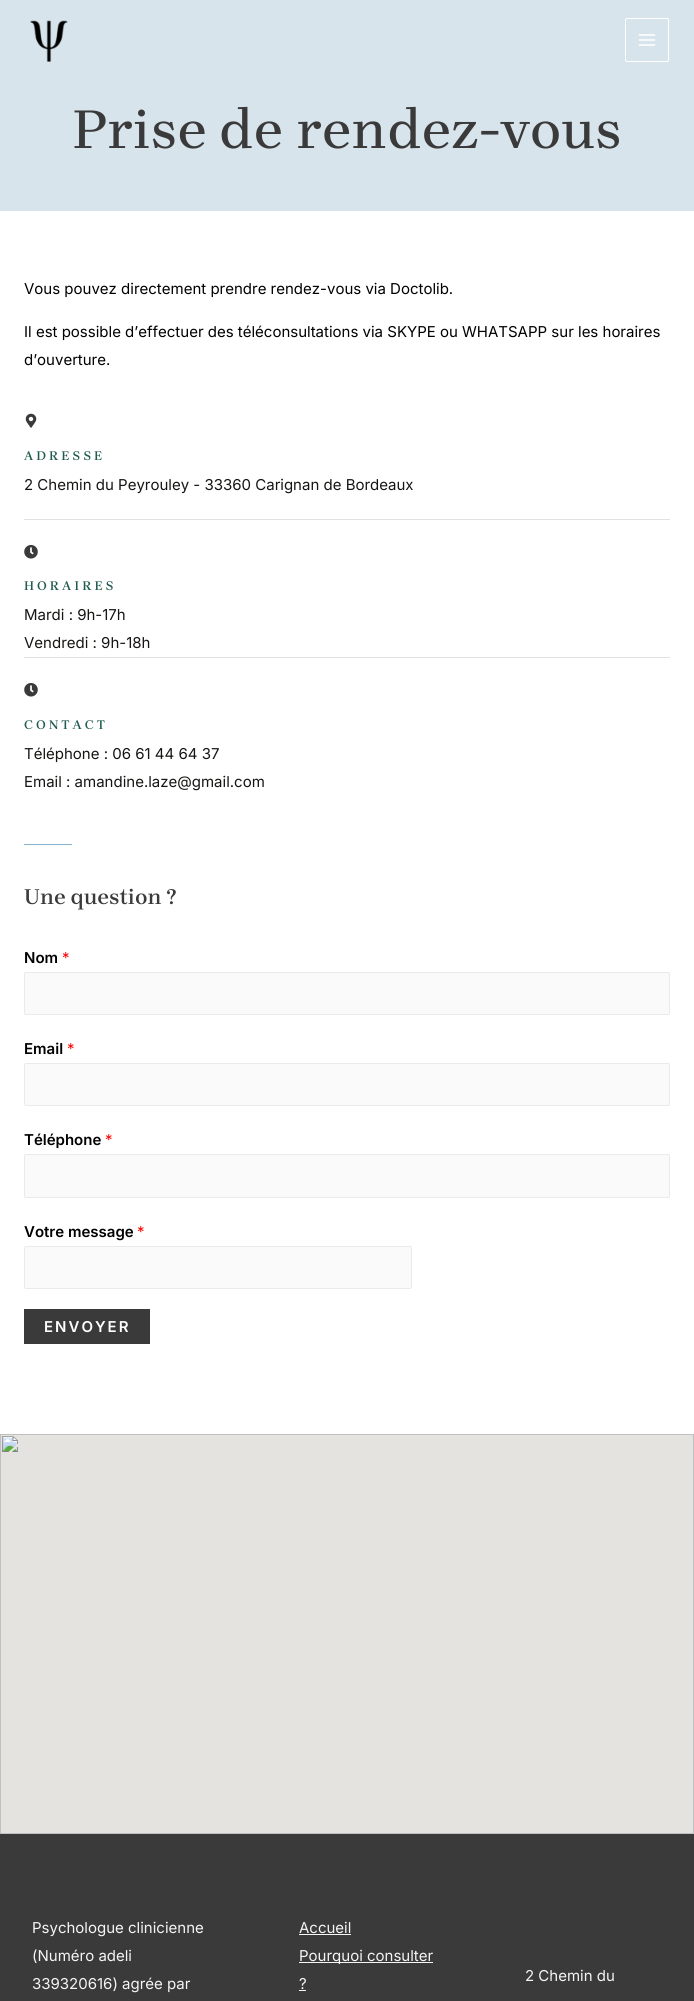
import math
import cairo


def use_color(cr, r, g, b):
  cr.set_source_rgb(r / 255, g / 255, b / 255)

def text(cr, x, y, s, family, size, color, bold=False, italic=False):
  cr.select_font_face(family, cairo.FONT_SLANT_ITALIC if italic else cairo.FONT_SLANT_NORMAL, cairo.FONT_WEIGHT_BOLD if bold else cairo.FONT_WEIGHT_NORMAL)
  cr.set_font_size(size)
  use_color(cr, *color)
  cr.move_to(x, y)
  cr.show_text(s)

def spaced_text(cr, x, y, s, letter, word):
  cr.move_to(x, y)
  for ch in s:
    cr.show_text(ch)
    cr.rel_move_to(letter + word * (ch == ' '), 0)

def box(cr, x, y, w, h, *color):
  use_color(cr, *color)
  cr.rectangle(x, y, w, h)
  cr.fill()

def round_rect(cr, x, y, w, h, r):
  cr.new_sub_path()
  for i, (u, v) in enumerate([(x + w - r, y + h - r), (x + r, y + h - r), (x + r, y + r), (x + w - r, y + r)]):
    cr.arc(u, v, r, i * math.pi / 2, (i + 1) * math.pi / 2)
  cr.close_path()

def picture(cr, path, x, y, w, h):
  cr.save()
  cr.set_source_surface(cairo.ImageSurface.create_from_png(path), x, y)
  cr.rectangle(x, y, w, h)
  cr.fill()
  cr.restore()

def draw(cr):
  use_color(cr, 58, 58, 58)
  cr.paint()
  box(cr, 0, 0, 694, 211, 216, 228, 236)
  picture(cr, "img_01.png", 30, 20, 38, 42)
  round_rect(cr, 625.5, 18.5, 43, 43, 1.5)
  use_color(cr, 255, 255, 255)
  cr.set_line_width(1)
  cr.stroke()
  picture(cr, "img_02.png", 638, 34, 18, 12)
  box(cr, 0, 211, 694, 1223, 255, 255, 255)
  picture(cr, "img_03.png", 25, 413, 12, 15)
  box(cr, 24, 519, 646, 1, 226, 225, 223)
  picture(cr, "img_04.png", 24, 545, 14, 14)
  box(cr, 24, 657, 646, 1, 226, 225, 223)
  picture(cr, "img_04.png", 24, 683, 14, 14)
  box(cr, 24, 844, 48, 1, 134, 178, 209)
  use_color(cr, 250, 250, 250)
  round_rect(cr, 24.5, 972.5, 645, 42, 1.5)
  cr.fill_preserve()
  use_color(cr, 234, 234, 234)
  cr.stroke()
  use_color(cr, 250, 250, 250)
  round_rect(cr, 24.5, 1063.5, 645, 42, 1.5)
  cr.fill_preserve()
  use_color(cr, 234, 234, 234)
  cr.stroke()
  use_color(cr, 250, 250, 250)
  round_rect(cr, 24.5, 1154.5, 645, 43, 1.5)
  cr.fill_preserve()
  use_color(cr, 234, 234, 234)
  cr.stroke()
  use_color(cr, 250, 250, 250)
  round_rect(cr, 24.5, 1246.5, 387, 42, 1.5)
  cr.fill_preserve()
  use_color(cr, 234, 234, 234)
  cr.stroke()
  box(cr, 24, 1309, 126, 35, 58, 58, 58)
  picture(cr, "img_05.png", 0, 1434, 694, 400)
  box(cr, 299, 1934, 52, 1, 245, 245, 245)
  box(cr, 299, 1962, 134, 1, 245, 245, 245)
  box(cr, 299, 1990, 7, 1, 245, 245, 245)
  text(cr, 72, 148, "Prise de rendez-vous", "Brygada 1918 Medium", 56, (58, 58, 58))
  text(cr, 24, 294, "Vous pouvez directement prendre rendez-vous via Doctolib.", "Inter", 15, (0, 0, 0))
  text(cr, 24, 337, "Il est possible d’effectuer des téléconsultations via SKYPE ou WHATSAPP sur les horaires", "Inter", 15, (0, 0, 0))
  text(cr, 24, 365, "d’ouverture.", "Inter", 15, (0, 0, 0))
  cr.select_font_face("Brygada 1918 SemiBold")
  cr.set_font_size(13)
  use_color(cr, 32, 91, 79)
  spaced_text(cr, 24, 460, "ADRESSE", 3, 0)
  text(cr, 24, 490, "2 Chemin du Peyrouley - 33360 Carignan de Bordeaux", "Inter", 15, (22, 21, 19))
  cr.select_font_face("Brygada 1918 SemiBold")
  cr.set_font_size(13)
  use_color(cr, 32, 91, 79)
  spaced_text(cr, 24, 590, "HORAIRES", 3, 0)
  text(cr, 24, 620, "Mardi : 9h-17h", "Inter", 15, (22, 21, 19))
  text(cr, 24, 648, "Vendredi : 9h-18h", "Inter", 15, (22, 21, 19))
  cr.select_font_face("Brygada 1918 SemiBold")
  cr.set_font_size(13)
  use_color(cr, 32, 91, 79)
  spaced_text(cr, 24, 729, "CONTACT", 3, 0)
  text(cr, 24, 759, "Téléphone : 06 61 44 64 37", "Inter", 15, (22, 21, 19))
  text(cr, 24, 787, "Email : amandine.laze@gmail.com", "Inter", 15, (22, 21, 19))
  text(cr, 24, 904, "Une question ?", "Brygada 1918 SemiBold", 22, (58, 58, 58))
  text(cr, 24, 963, "Nom", "Inter SemiBold", 15, (0, 0, 0))
  text(cr, 62, 963, "*", "Inter", 15, (255, 0, 0))
  text(cr, 24, 1054, "Email", "Inter SemiBold", 15, (0, 0, 0))
  text(cr, 67, 1054, "*", "Inter", 15, (255, 0, 0))
  text(cr, 24, 1145, "Téléphone", "Inter SemiBold", 15, (0, 0, 0))
  text(cr, 105, 1145, "*", "Inter", 15, (255, 0, 0))
  text(cr, 24, 1237, "Votre message", "Inter SemiBold", 15, (0, 0, 0))
  text(cr, 137, 1237, "*", "Inter", 15, (255, 0, 0))
  cr.select_font_face("Inter SemiBold")
  use_color(cr, 255, 255, 255)
  spaced_text(cr, 44, 1332, "ENVOYER", 2, 0)
  text(cr, 32, 1933, "Psychologue clinicienne", "Inter", 15, (245, 245, 245))
  text(cr, 32, 1961, "(Numéro adeli", "Inter", 15, (245, 245, 245))
  text(cr, 32, 1989, "339320616) agrée par", "Inter", 15, (245, 245, 245))
  text(cr, 299, 1933, "Accueil", "Inter", 15, (245, 245, 245))
  text(cr, 299, 1961, "Pourquoi consulter", "Inter", 15, (245, 245, 245))
  text(cr, 299, 1989, "?", "Inter", 15, (245, 245, 245))
  text(cr, 525, 1981, "2 Chemin du", "Inter", 15, (245, 245, 245))


surface = cairo.ImageSurface(cairo.FORMAT_RGB24, 694, 2001)
cr = cairo.Context(surface)
options = cairo.FontOptions()
options.set_hint_metrics(cairo.HINT_METRICS_OFF)
options.set_hint_style(cairo.HINT_STYLE_NONE)
cr.set_font_options(options)
cr.set_miter_limit(4)
draw(cr)
surface.write_to_png("out.png")
